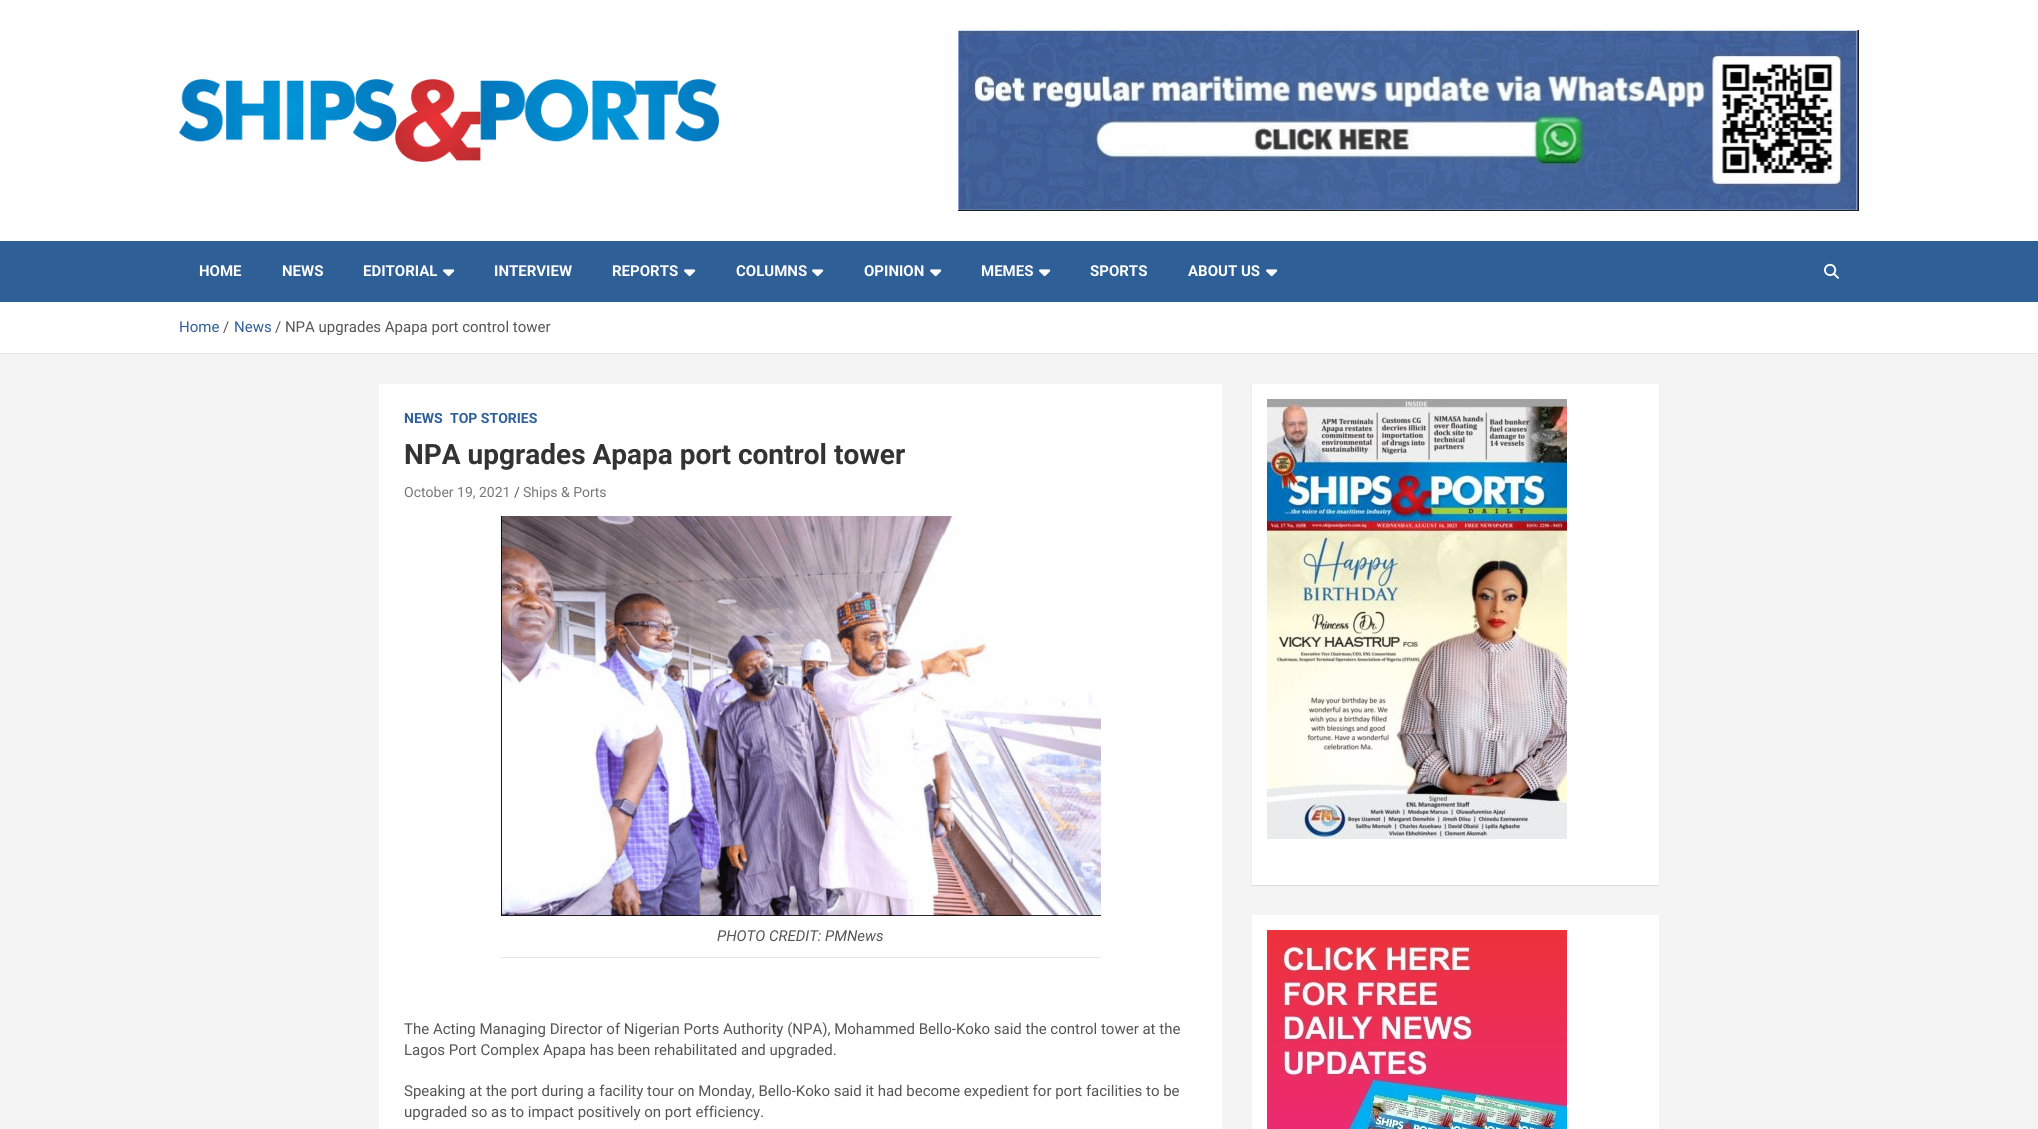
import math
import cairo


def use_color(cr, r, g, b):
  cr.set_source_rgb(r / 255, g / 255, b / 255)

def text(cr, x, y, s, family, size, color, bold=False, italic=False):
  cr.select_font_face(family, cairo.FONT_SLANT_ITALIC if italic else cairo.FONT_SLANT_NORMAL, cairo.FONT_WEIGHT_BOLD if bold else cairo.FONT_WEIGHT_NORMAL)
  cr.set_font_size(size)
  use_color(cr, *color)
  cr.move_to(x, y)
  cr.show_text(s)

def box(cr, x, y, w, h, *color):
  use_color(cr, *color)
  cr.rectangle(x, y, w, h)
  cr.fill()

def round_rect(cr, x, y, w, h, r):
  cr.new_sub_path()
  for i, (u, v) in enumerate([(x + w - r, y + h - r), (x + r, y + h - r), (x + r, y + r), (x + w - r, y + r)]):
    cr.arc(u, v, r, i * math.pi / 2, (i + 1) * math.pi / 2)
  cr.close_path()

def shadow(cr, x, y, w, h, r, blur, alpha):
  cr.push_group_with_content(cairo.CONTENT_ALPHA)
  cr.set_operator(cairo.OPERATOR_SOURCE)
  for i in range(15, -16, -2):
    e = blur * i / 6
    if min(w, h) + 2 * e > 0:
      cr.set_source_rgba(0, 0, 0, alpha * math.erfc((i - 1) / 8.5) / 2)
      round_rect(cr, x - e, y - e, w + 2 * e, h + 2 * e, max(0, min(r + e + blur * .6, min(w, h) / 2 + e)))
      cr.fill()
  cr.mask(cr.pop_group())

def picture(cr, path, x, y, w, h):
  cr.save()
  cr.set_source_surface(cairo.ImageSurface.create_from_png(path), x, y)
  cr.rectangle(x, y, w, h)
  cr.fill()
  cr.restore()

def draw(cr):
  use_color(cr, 244, 244, 244)
  cr.paint()
  box(cr, 0, 0, 2038, 241, 255, 255, 255)
  picture(cr, "img_01.png", 179, 79, 540, 83)
  picture(cr, "img_02.png", 958, 30, 901, 181)
  box(cr, 0, 241, 2038, 61, 46, 95, 151)
  picture(cr, "img_03.png", 443, 269, 12, 8)
  picture(cr, "img_03.png", 684, 269, 12, 8)
  picture(cr, "img_03.png", 812, 269, 12, 8)
  picture(cr, "img_03.png", 930, 269, 12, 8)
  picture(cr, "img_03.png", 1039, 269, 12, 8)
  picture(cr, "img_03.png", 1266, 269, 12, 8)
  picture(cr, "img_04.png", 1824, 263, 15, 16)
  box(cr, 0, 302, 2038, 51, 255, 255, 255)
  box(cr, 0, 353, 2038, 1, 230, 230, 230)
  box(cr, 379, 384, 843, 745, 255, 255, 255)
  picture(cr, "img_05.png", 501, 516, 600, 400)
  box(cr, 501, 957, 600, 1, 230, 230, 230)
  use_color(cr, 0, 0, 0)
  shadow(cr, 1252, 385, 407, 501, 0, 0.5, 0.1)
  box(cr, 1252, 384, 407, 501, 255, 255, 255)
  picture(cr, "img_06.png", 1267, 399, 300, 440)
  box(cr, 1252, 915, 407, 214, 255, 255, 255)
  picture(cr, "img_07.png", 1267, 930, 300, 199)
  text(cr, 199, 276, "HOME", "Roboto", 15, (255, 255, 255), bold=True)
  text(cr, 282, 276, "NEWS", "Roboto", 15, (255, 255, 255), bold=True)
  text(cr, 363, 276, "EDITORIAL", "Roboto", 15, (255, 255, 255), bold=True)
  text(cr, 494, 276, "INTERVIEW", "Roboto", 15, (255, 255, 255), bold=True)
  text(cr, 612, 276, "REPORTS", "Roboto", 15, (255, 255, 255), bold=True)
  text(cr, 736, 276, "COLUMNS", "Roboto", 15, (255, 255, 255), bold=True)
  text(cr, 864, 276, "OPINION", "Roboto", 15, (255, 255, 255), bold=True)
  text(cr, 981, 276, "MEMES", "Roboto", 15, (255, 255, 255), bold=True)
  text(cr, 1090, 276, "SPORTS", "Roboto", 15, (255, 255, 255), bold=True)
  text(cr, 1188, 276, "ABOUT US", "Roboto", 15, (255, 255, 255), bold=True)
  text(cr, 179, 332, "Home", "Roboto", 15, (46, 95, 151))
  text(cr, 223, 332, "/", "Roboto", 15, (85, 85, 85))
  text(cr, 234, 332, "News", "Roboto", 15, (46, 95, 151))
  text(cr, 275, 332, "/ NPA upgrades Apapa port control tower", "Roboto", 15, (85, 85, 85))
  text(cr, 404, 423, "NEWS", "Roboto", 14, (46, 95, 151), bold=True)
  text(cr, 450, 423, "TOP STORIES", "Roboto", 14, (46, 95, 151), bold=True)
  text(cr, 404, 464, "NPA upgrades Apapa port control tower", "Roboto", 28, (51, 51, 51), bold=True)
  text(cr, 404, 497, "October 19, 2021", "Roboto", 14, (119, 119, 119))
  text(cr, 514, 497, "/", "Roboto", 14, (85, 85, 85))
  text(cr, 523, 497, "Ships & Ports", "Roboto", 14, (119, 119, 119))
  text(cr, 717, 941, "PHOTO CREDIT: PMNews", "Roboto", 15, (85, 85, 85), italic=True)
  text(cr, 404, 1034, "The Acting Managing Director of Nigerian Ports Authority (NPA), Mohammed Bello-Koko said the control tower at the", "Roboto", 15, (85, 85, 85))
  text(cr, 404, 1055, "Lagos Port Complex Apapa has been rehabilitated and upgraded.", "Roboto", 15, (85, 85, 85))
  text(cr, 404, 1096, "Speaking at the port during a facility tour on Monday, Bello-Koko said it had become expedient for port facilities to be", "Roboto", 15, (85, 85, 85))
  text(cr, 404, 1117, "upgraded so as to impact positively on port efficiency.", "Roboto", 15, (85, 85, 85))


surface = cairo.ImageSurface(cairo.FORMAT_RGB24, 2038, 1129)
cr = cairo.Context(surface)
options = cairo.FontOptions()
options.set_hint_metrics(cairo.HINT_METRICS_OFF)
options.set_hint_style(cairo.HINT_STYLE_NONE)
cr.set_font_options(options)
cr.set_miter_limit(4)
draw(cr)
surface.write_to_png("out.png")
